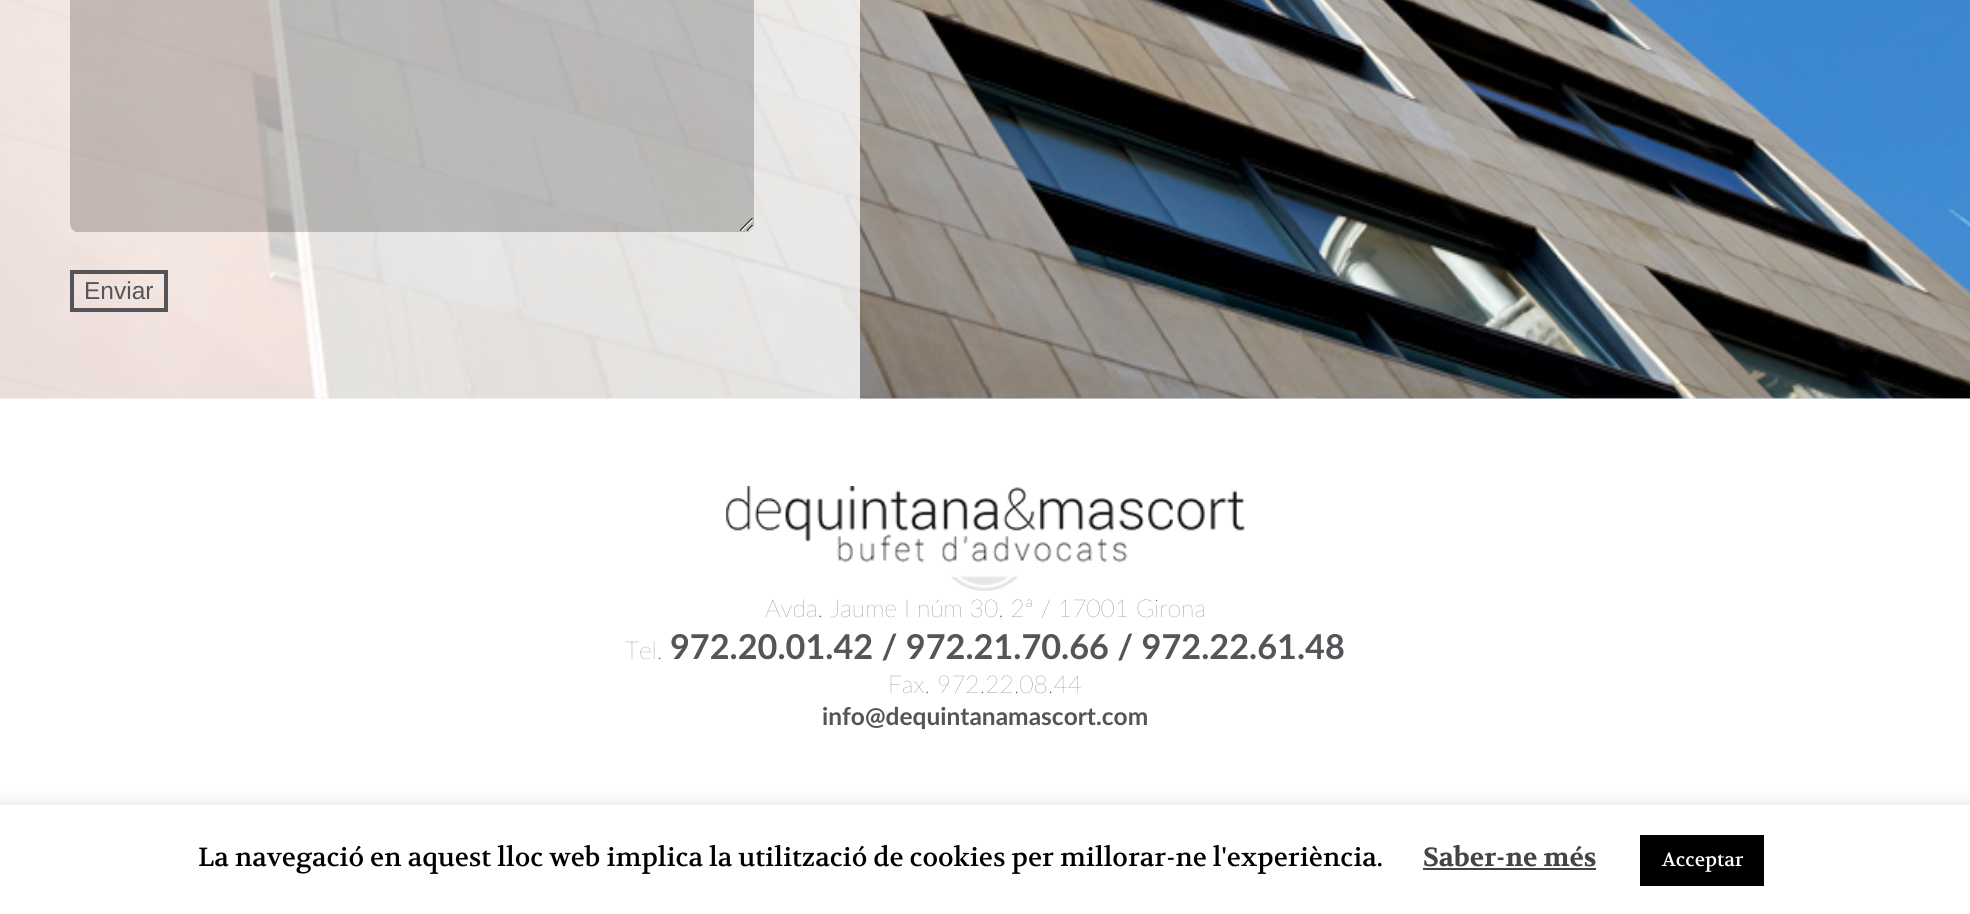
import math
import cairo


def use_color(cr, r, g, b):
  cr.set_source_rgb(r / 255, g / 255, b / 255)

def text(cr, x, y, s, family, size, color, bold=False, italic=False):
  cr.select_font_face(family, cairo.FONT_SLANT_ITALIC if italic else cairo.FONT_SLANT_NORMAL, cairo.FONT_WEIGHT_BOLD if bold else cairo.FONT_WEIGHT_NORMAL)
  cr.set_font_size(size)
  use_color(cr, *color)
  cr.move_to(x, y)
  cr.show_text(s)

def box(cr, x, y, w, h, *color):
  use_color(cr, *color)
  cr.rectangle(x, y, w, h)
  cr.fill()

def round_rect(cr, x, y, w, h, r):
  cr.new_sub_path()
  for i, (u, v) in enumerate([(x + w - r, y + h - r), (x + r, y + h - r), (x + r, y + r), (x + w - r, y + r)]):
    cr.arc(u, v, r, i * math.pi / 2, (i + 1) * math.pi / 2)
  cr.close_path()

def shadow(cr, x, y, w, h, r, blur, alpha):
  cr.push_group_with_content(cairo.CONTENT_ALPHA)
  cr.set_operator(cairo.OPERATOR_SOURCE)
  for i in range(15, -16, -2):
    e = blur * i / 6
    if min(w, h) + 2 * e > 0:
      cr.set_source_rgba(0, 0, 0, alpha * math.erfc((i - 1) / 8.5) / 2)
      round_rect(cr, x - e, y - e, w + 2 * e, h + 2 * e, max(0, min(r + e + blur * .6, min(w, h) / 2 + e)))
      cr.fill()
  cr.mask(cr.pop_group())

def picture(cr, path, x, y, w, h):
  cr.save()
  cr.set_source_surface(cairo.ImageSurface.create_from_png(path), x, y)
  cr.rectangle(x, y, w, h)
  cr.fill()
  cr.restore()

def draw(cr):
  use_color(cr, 255, 255, 255)
  cr.paint()
  picture(cr, "img_01.png", 0, 0, 1970, 399)
  cr.set_source_rgba(1, 1, 1, 0.8)
  cr.rectangle(0, 0, 860, 399)
  cr.fill()
  picture(cr, "img_02.png", 70, 0, 684, 232)
  cr.rectangle(72, 272, 94, 38)
  use_color(cr, 85, 85, 89)
  cr.set_line_width(4)
  cr.stroke()
  picture(cr, "img_03.png", 726, 486, 519, 105)
  use_color(cr, 172, 171, 171)
  shadow(cr, 0, 803, 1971, 111, 0, 9, 0.3)
  box(cr, 0, 805, 1970, 109, 255, 255, 255)
  box(cr, 1423, 868, 173, 2, 68, 68, 68)
  box(cr, 1640, 835, 124, 51, 0, 0, 0)
  text(cr, 84, 299, "Enviar", "Liberation Sans", 24.5, (85, 85, 89))
  text(cr, 765, 617, "Avda. Jaume I núm 30, 2ª / 17001 Girona", "Lato ExtraLight", 24.5, (85, 85, 89))
  text(cr, 625, 659, "Tel.", "Lato ExtraLight", 24.5, (85, 85, 89))
  text(cr, 670, 659, "972.20.01.42 / 972.21.70.66 / 972.22.61.48", "Lato", 34.25, (85, 85, 89), bold=True)
  text(cr, 888, 693, "Fax. 972.22.08.44", "Lato ExtraLight", 24.5, (85, 85, 89))
  text(cr, 822, 725, "info@dequintanamascort.com", "Lato", 24.5, (85, 85, 89), bold=True)
  text(cr, 198, 866, "La navegació en aquest lloc web implica la utilització de cookies per millorar-ne l'experiència.", "Volkhov", 26.25, (0, 0, 0))
  text(cr, 1423, 866, "Saber-ne més", "Volkhov", 26.25, (68, 68, 68), bold=True)
  text(cr, 1662, 866, "Acceptar", "Volkhov", 19.25, (255, 255, 255))


surface = cairo.ImageSurface(cairo.FORMAT_RGB24, 1970, 914)
cr = cairo.Context(surface)
options = cairo.FontOptions()
options.set_hint_metrics(cairo.HINT_METRICS_OFF)
options.set_hint_style(cairo.HINT_STYLE_NONE)
cr.set_font_options(options)
cr.set_miter_limit(4)
draw(cr)
surface.write_to_png("out.png")
